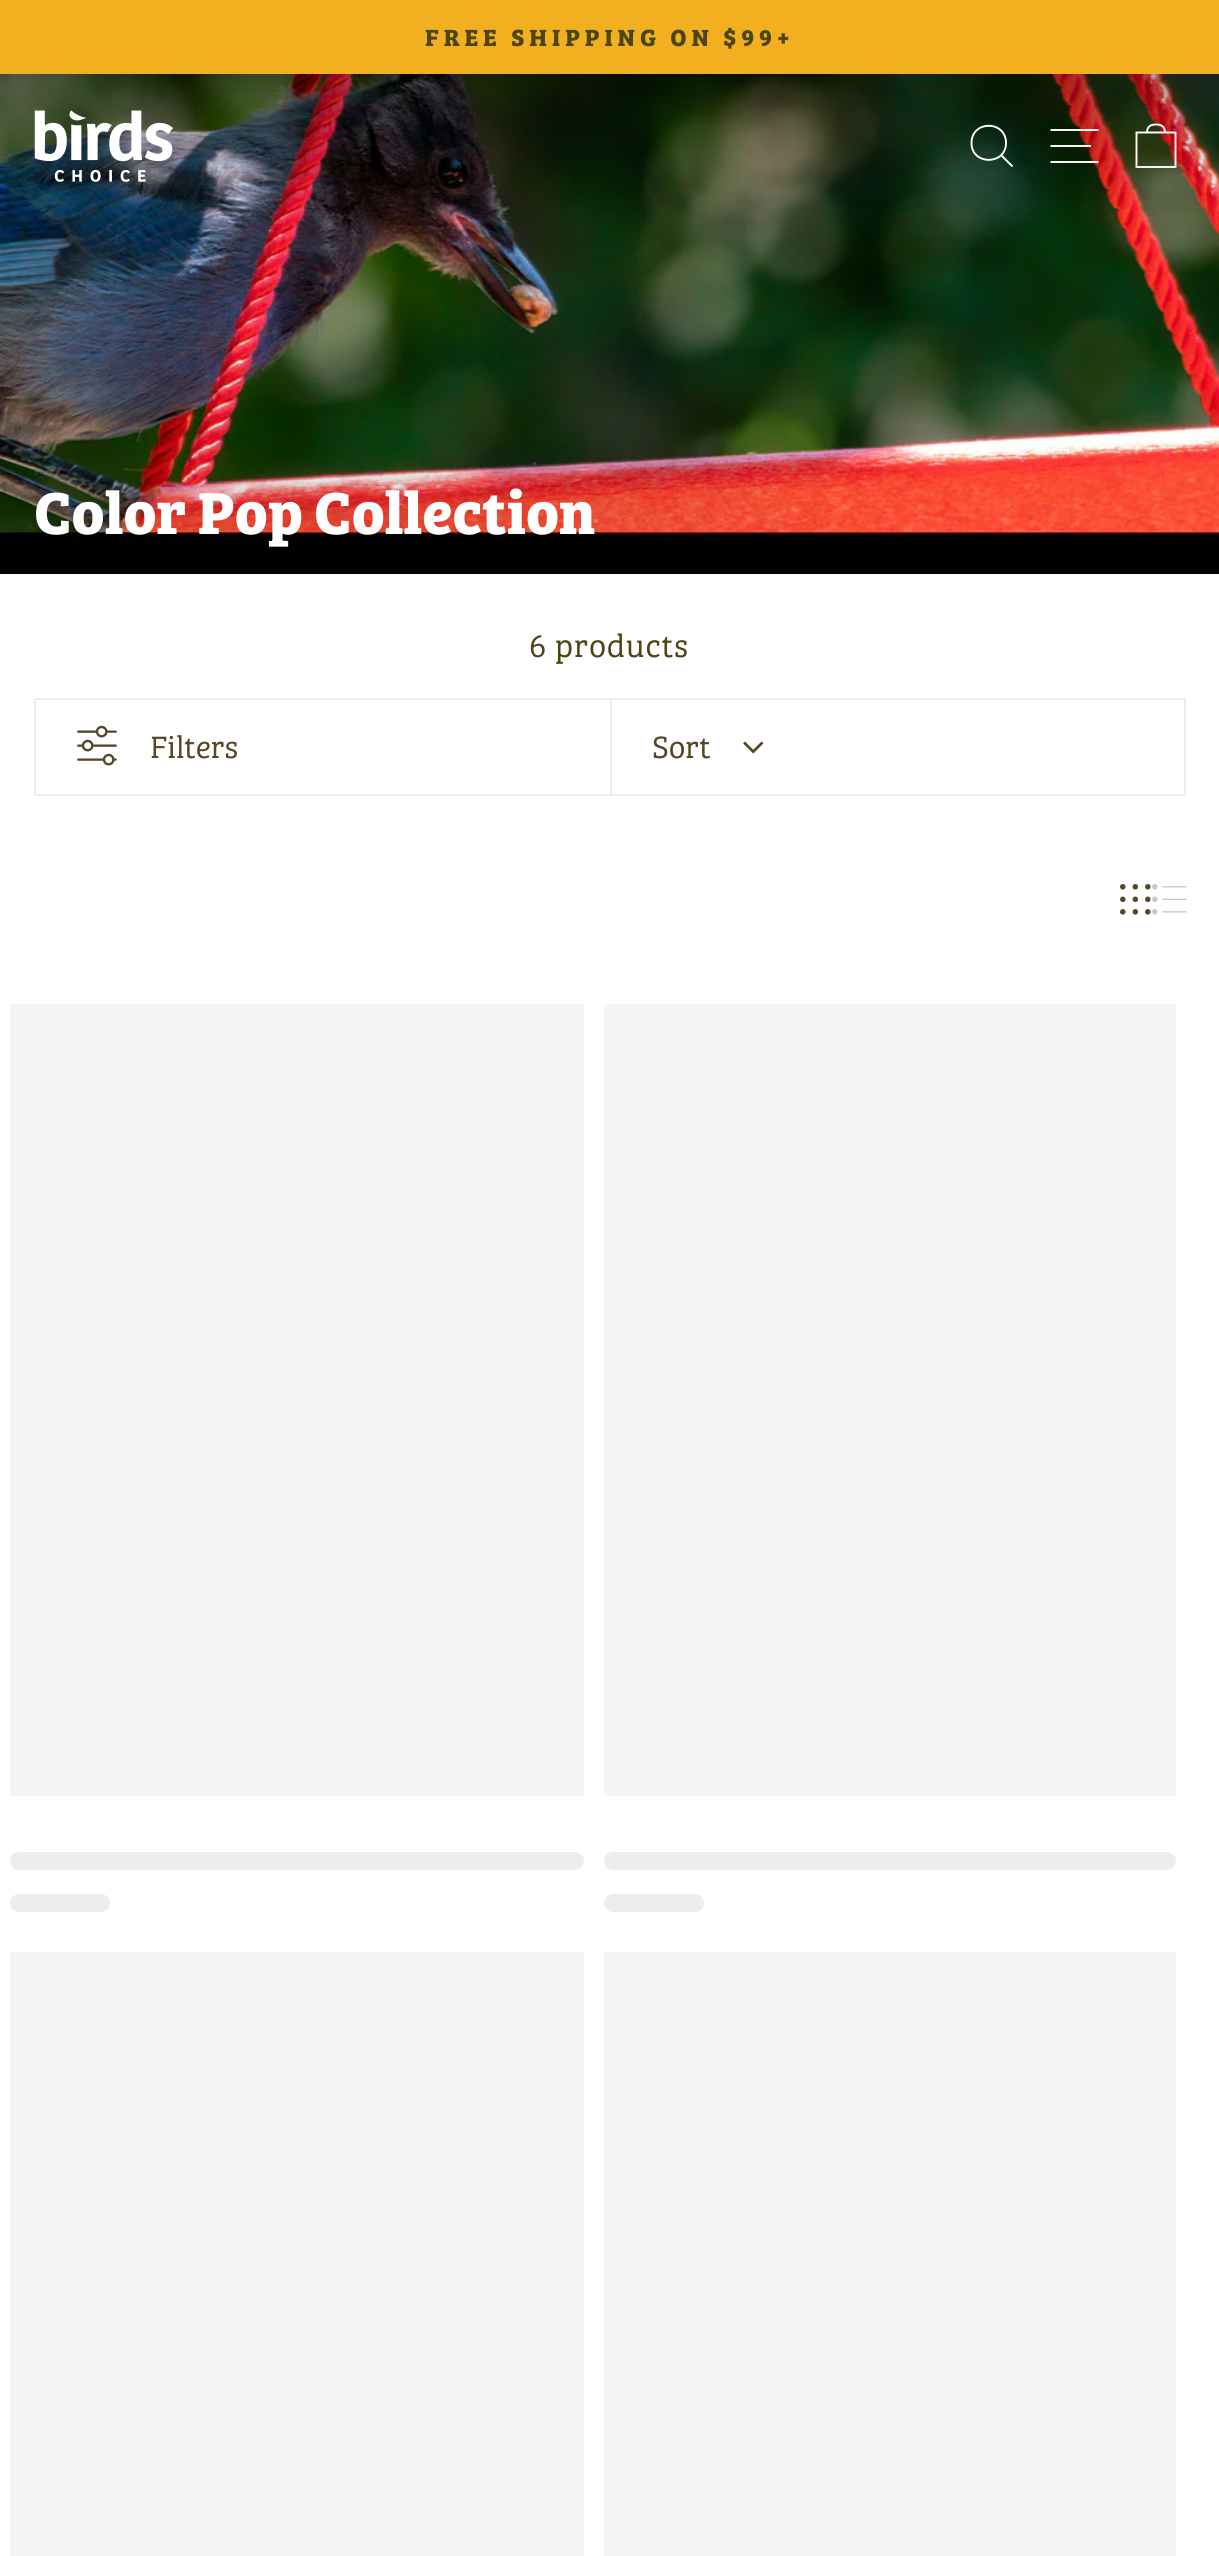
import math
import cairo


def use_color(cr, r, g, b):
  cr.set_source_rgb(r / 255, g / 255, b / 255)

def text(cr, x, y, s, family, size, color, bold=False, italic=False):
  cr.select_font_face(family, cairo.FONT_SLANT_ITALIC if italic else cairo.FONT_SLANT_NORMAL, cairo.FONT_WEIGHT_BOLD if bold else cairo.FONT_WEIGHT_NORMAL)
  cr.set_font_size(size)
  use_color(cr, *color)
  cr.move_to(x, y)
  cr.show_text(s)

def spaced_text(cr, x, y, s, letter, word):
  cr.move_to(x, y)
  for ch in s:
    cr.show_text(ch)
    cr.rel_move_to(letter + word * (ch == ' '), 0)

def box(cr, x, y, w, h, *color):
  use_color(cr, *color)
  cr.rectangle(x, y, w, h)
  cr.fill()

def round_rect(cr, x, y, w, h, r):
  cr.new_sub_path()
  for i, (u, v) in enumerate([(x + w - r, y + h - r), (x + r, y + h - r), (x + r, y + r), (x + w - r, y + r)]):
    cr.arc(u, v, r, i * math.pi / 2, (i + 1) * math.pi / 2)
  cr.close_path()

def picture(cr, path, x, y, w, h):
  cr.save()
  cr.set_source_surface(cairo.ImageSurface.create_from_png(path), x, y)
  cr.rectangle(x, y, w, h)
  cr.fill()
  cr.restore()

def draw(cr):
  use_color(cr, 255, 255, 255)
  cr.paint()
  box(cr, 0, 0, 1219, 74, 242, 176, 33)
  picture(cr, "img_02.png", 0, 74, 1219, 500)
  picture(cr, "img_01.png", 34, 110, 139, 72)
  cr.new_path()
  cr.move_to(1006, 143)
  cr.curve_to(1006, 165.5, 971.5, 165.5, 971.5, 143)
  cr.curve_to(971.5, 120, 1006, 120, 1006, 143)
  cr.close_path()
  cr.move_to(1012.5, 166.5)
  cr.line_to(1001.5, 155.5)
  use_color(cr, 255, 255, 255)
  cr.set_line_width(1.9)
  cr.stroke()
  cr.new_path()
  cr.move_to(1050.5, 130)
  cr.line_to(1098.5, 130)
  cr.move_to(1050.5, 146)
  cr.line_to(1091, 146)
  cr.move_to(1050.5, 162)
  cr.line_to(1098.5, 162)
  cr.stroke()
  cr.new_path()
  cr.move_to(1136.5, 132.5)
  cr.line_to(1175.5, 132.5)
  cr.line_to(1175.5, 167)
  cr.line_to(1136.5, 167)
  cr.close_path()
  cr.move_to(1147, 133)
  cr.curve_to(1147, 126, 1151, 124.5, 1156, 124.5)
  cr.curve_to(1161, 124.5, 1165, 126, 1165, 133)
  cr.stroke()
  box(cr, 34, 698, 576, 2, 237, 237, 237)
  box(cr, 34, 794, 576, 2, 237, 237, 237)
  box(cr, 34, 698, 2, 98, 237, 237, 237)
  picture(cr, "img_03.png", 77, 725, 40, 41)
  cr.rectangle(611, 699, 574, 96)
  cr.set_line_width(2)
  cr.stroke()
  picture(cr, "img_04.png", 743, 741, 21, 13)
  picture(cr, "img_05.png", 1120, 884, 31, 31)
  picture(cr, "img_06.png", 1152, 884, 35, 31)
  box(cr, 10, 1004, 574, 792, 245, 245, 245)
  use_color(cr, 237, 237, 237)
  round_rect(cr, 10, 1852, 574, 18, 9)
  cr.fill()
  round_rect(cr, 10, 1894, 100, 18, 9)
  cr.fill()
  box(cr, 604, 1004, 572, 792, 245, 245, 245)
  use_color(cr, 237, 237, 237)
  round_rect(cr, 604, 1852, 572, 18, 9)
  cr.fill()
  round_rect(cr, 604, 1894, 100, 18, 9)
  cr.fill()
  box(cr, 10, 1952, 574, 604, 245, 245, 245)
  box(cr, 604, 1952, 572, 604, 245, 245, 245)
  cr.select_font_face("Bree Serif", cairo.FONT_SLANT_NORMAL, cairo.FONT_WEIGHT_BOLD)
  cr.set_font_size(24.25)
  use_color(cr, 76, 69, 20)
  spaced_text(cr, 425, 46, "FREE SHIPPING ON $99+", 4.9, 0)
  text(cr, 34, 534, "Color Pop Collection", "Bree Serif", 61.25, (255, 255, 255), bold=True)
  cr.select_font_face("Bree Serif Light")
  cr.set_font_size(33)
  use_color(cr, 76, 69, 20)
  spaced_text(cr, 529, 657, "6 products", 0.75, 0)
  text(cr, 150, 758, "Filters", "Bree Serif Light", 32, (84, 70, 39))
  text(cr, 652, 758, "Sort", "Bree Serif Light", 32, (84, 70, 39))


surface = cairo.ImageSurface(cairo.FORMAT_RGB24, 1219, 2556)
cr = cairo.Context(surface)
options = cairo.FontOptions()
options.set_hint_metrics(cairo.HINT_METRICS_OFF)
options.set_hint_style(cairo.HINT_STYLE_NONE)
cr.set_font_options(options)
cr.set_miter_limit(4)
draw(cr)
surface.write_to_png("out.png")
